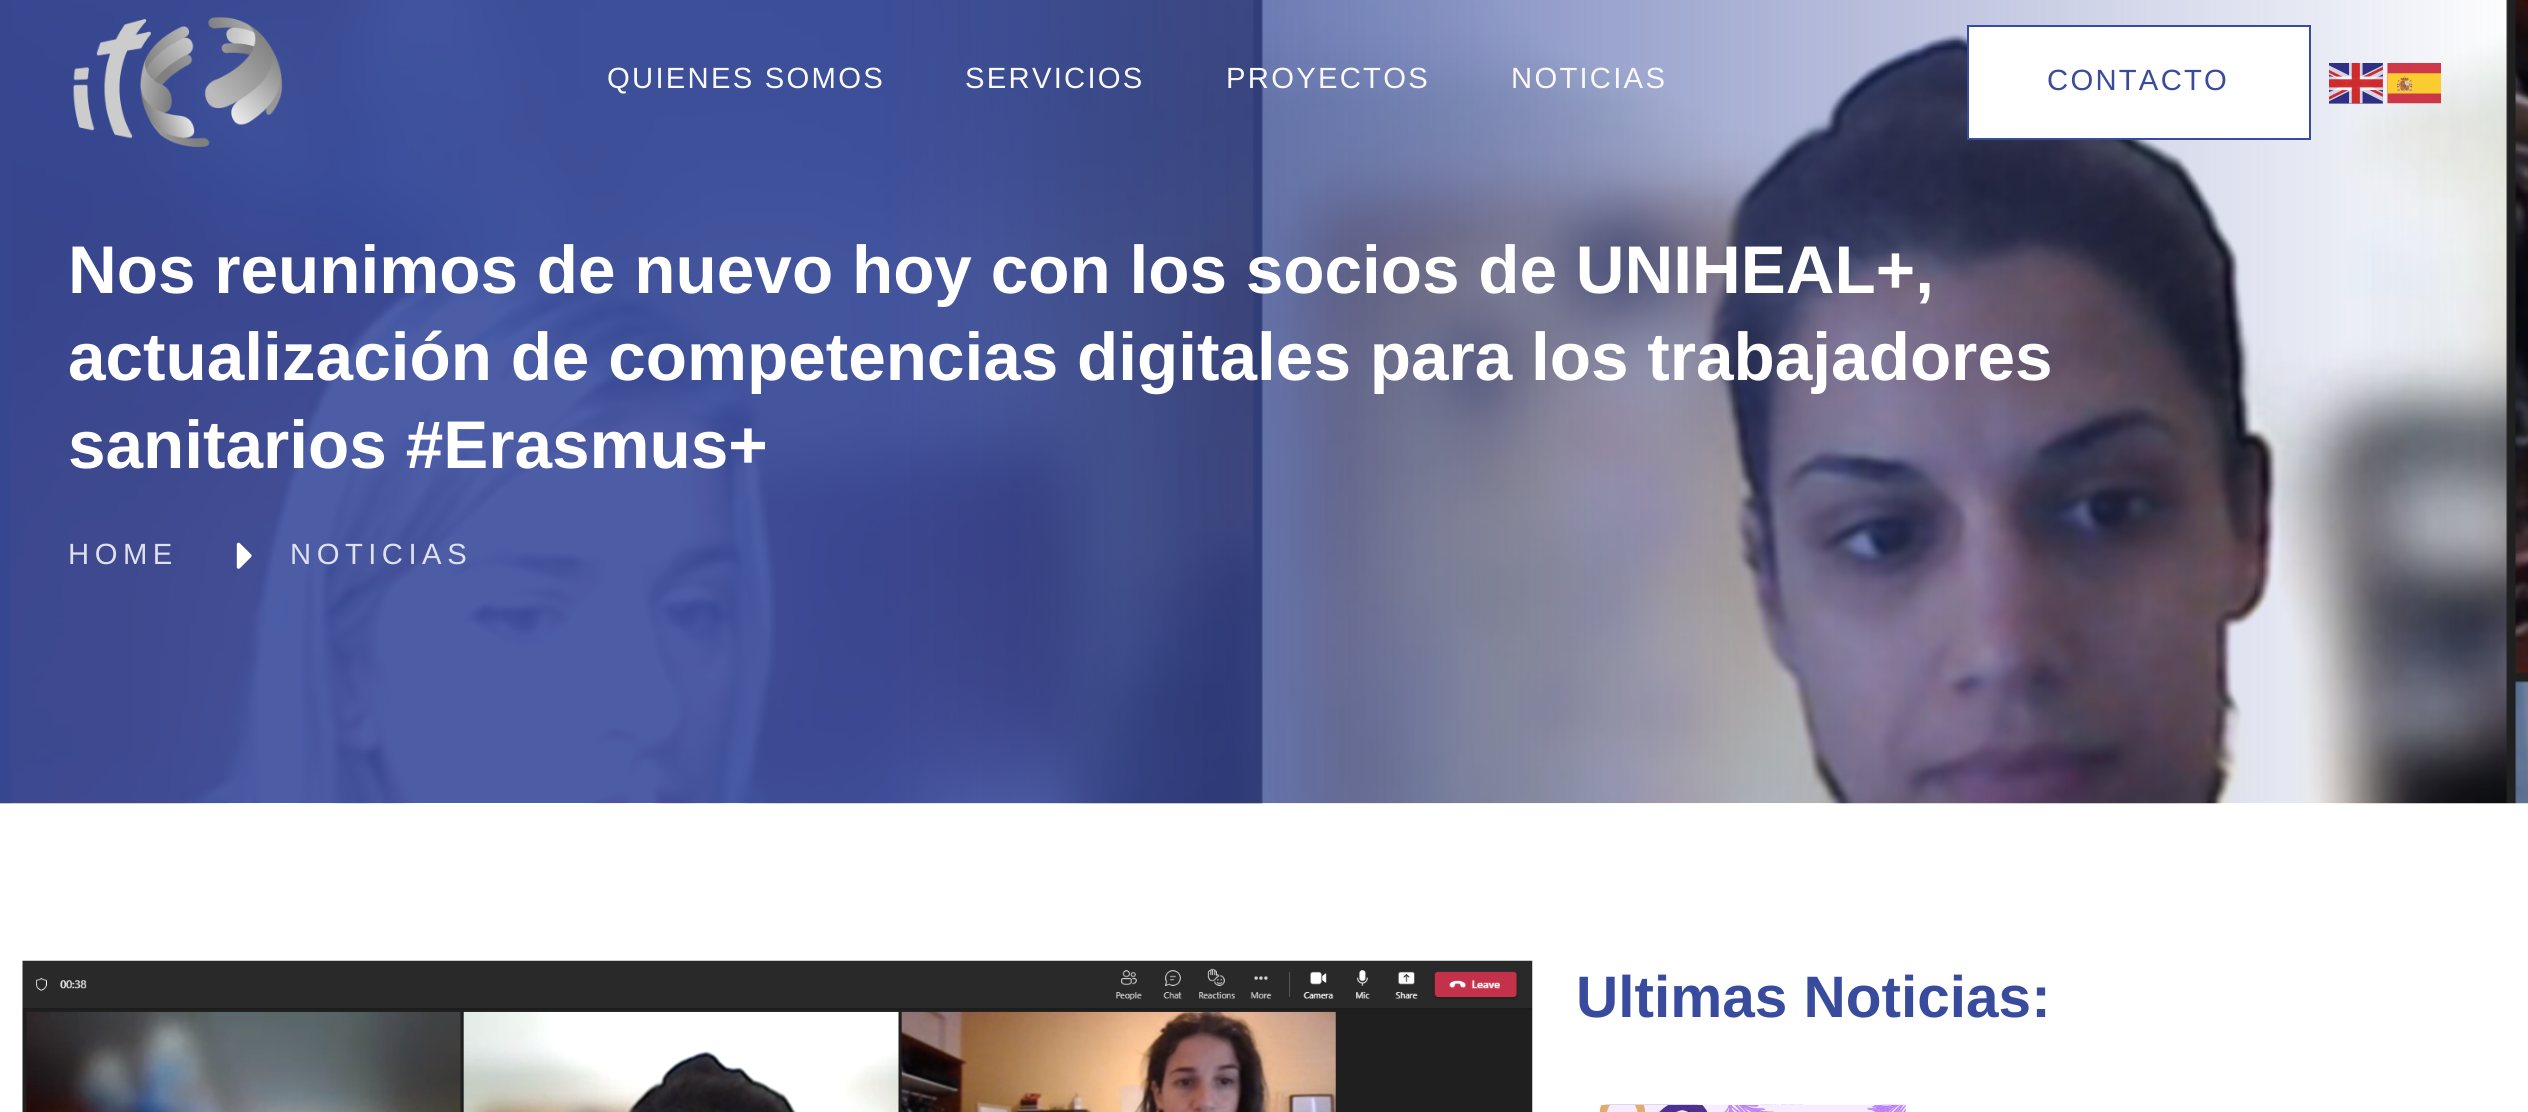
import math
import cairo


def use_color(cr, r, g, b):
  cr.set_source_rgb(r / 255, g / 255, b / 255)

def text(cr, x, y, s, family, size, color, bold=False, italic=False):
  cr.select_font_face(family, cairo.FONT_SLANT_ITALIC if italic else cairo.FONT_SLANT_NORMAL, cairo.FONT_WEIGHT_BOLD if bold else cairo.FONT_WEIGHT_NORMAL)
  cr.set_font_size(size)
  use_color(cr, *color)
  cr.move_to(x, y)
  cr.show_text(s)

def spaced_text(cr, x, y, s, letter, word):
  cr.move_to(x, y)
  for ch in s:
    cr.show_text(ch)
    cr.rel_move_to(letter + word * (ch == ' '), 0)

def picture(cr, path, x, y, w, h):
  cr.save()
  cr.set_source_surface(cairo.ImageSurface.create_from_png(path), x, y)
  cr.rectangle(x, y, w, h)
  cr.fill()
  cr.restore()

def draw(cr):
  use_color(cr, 255, 255, 255)
  cr.paint()
  picture(cr, "img_04.png", 0, 0, 2528, 804)
  picture(cr, "img_01.png", 73, 17, 209, 130)
  use_color(cr, 255, 255, 255)
  cr.rectangle(1968, 26, 342, 113)
  cr.fill_preserve()
  use_color(cr, 57, 75, 157)
  cr.stroke()
  picture(cr, "img_02.png", 2329, 63, 54, 41)
  picture(cr, "img_03.png", 2387, 63, 54, 41)
  picture(cr, "img_05.png", 236, 542, 16, 27)
  picture(cr, "img_06.png", 22, 960, 1511, 152)
  picture(cr, "img_07.png", 1599, 1104, 307, 8)
  cr.select_font_face("Liberation Sans")
  cr.set_font_size(29.25)
  use_color(cr, 249, 249, 249)
  spaced_text(cr, 607, 88, "QUIENES SOMOS", 2.25, 0)
  spaced_text(cr, 965, 88, "SERVICIOS", 2.25, 0)
  spaced_text(cr, 1226, 88, "PROYECTOS", 2.25, 0)
  spaced_text(cr, 1511, 88, "NOTICIAS", 2.25, 0)
  use_color(cr, 57, 75, 157)
  spaced_text(cr, 2047, 90, "CONTACTO", 2.25, 0)
  text(cr, 68, 293, "Nos reunimos de nuevo hoy con los socios de UNIHEAL+,", "Liberation Sans", 67.5, (255, 255, 255), bold=True)
  text(cr, 68, 380, "actualización de competencias digitales para los trabajadores", "Liberation Sans", 67.5, (255, 255, 255), bold=True)
  text(cr, 68, 468, "sanitarios #Erasmus+", "Liberation Sans", 67.5, (255, 255, 255), bold=True)
  cr.select_font_face("Liberation Sans")
  cr.set_font_size(29.25)
  use_color(cr, 222, 224, 236)
  spaced_text(cr, 68, 564, "HOME", 5.5, 0)
  spaced_text(cr, 290, 564, "NOTICIAS", 5.5, 0)
  text(cr, 1576, 1017, "Ultimas Noticias:", "Liberation Sans", 58.5, (57, 75, 157), bold=True)


surface = cairo.ImageSurface(cairo.FORMAT_RGB24, 2528, 1112)
cr = cairo.Context(surface)
options = cairo.FontOptions()
options.set_hint_metrics(cairo.HINT_METRICS_OFF)
options.set_hint_style(cairo.HINT_STYLE_NONE)
cr.set_font_options(options)
cr.set_miter_limit(4)
draw(cr)
surface.write_to_png("out.png")
